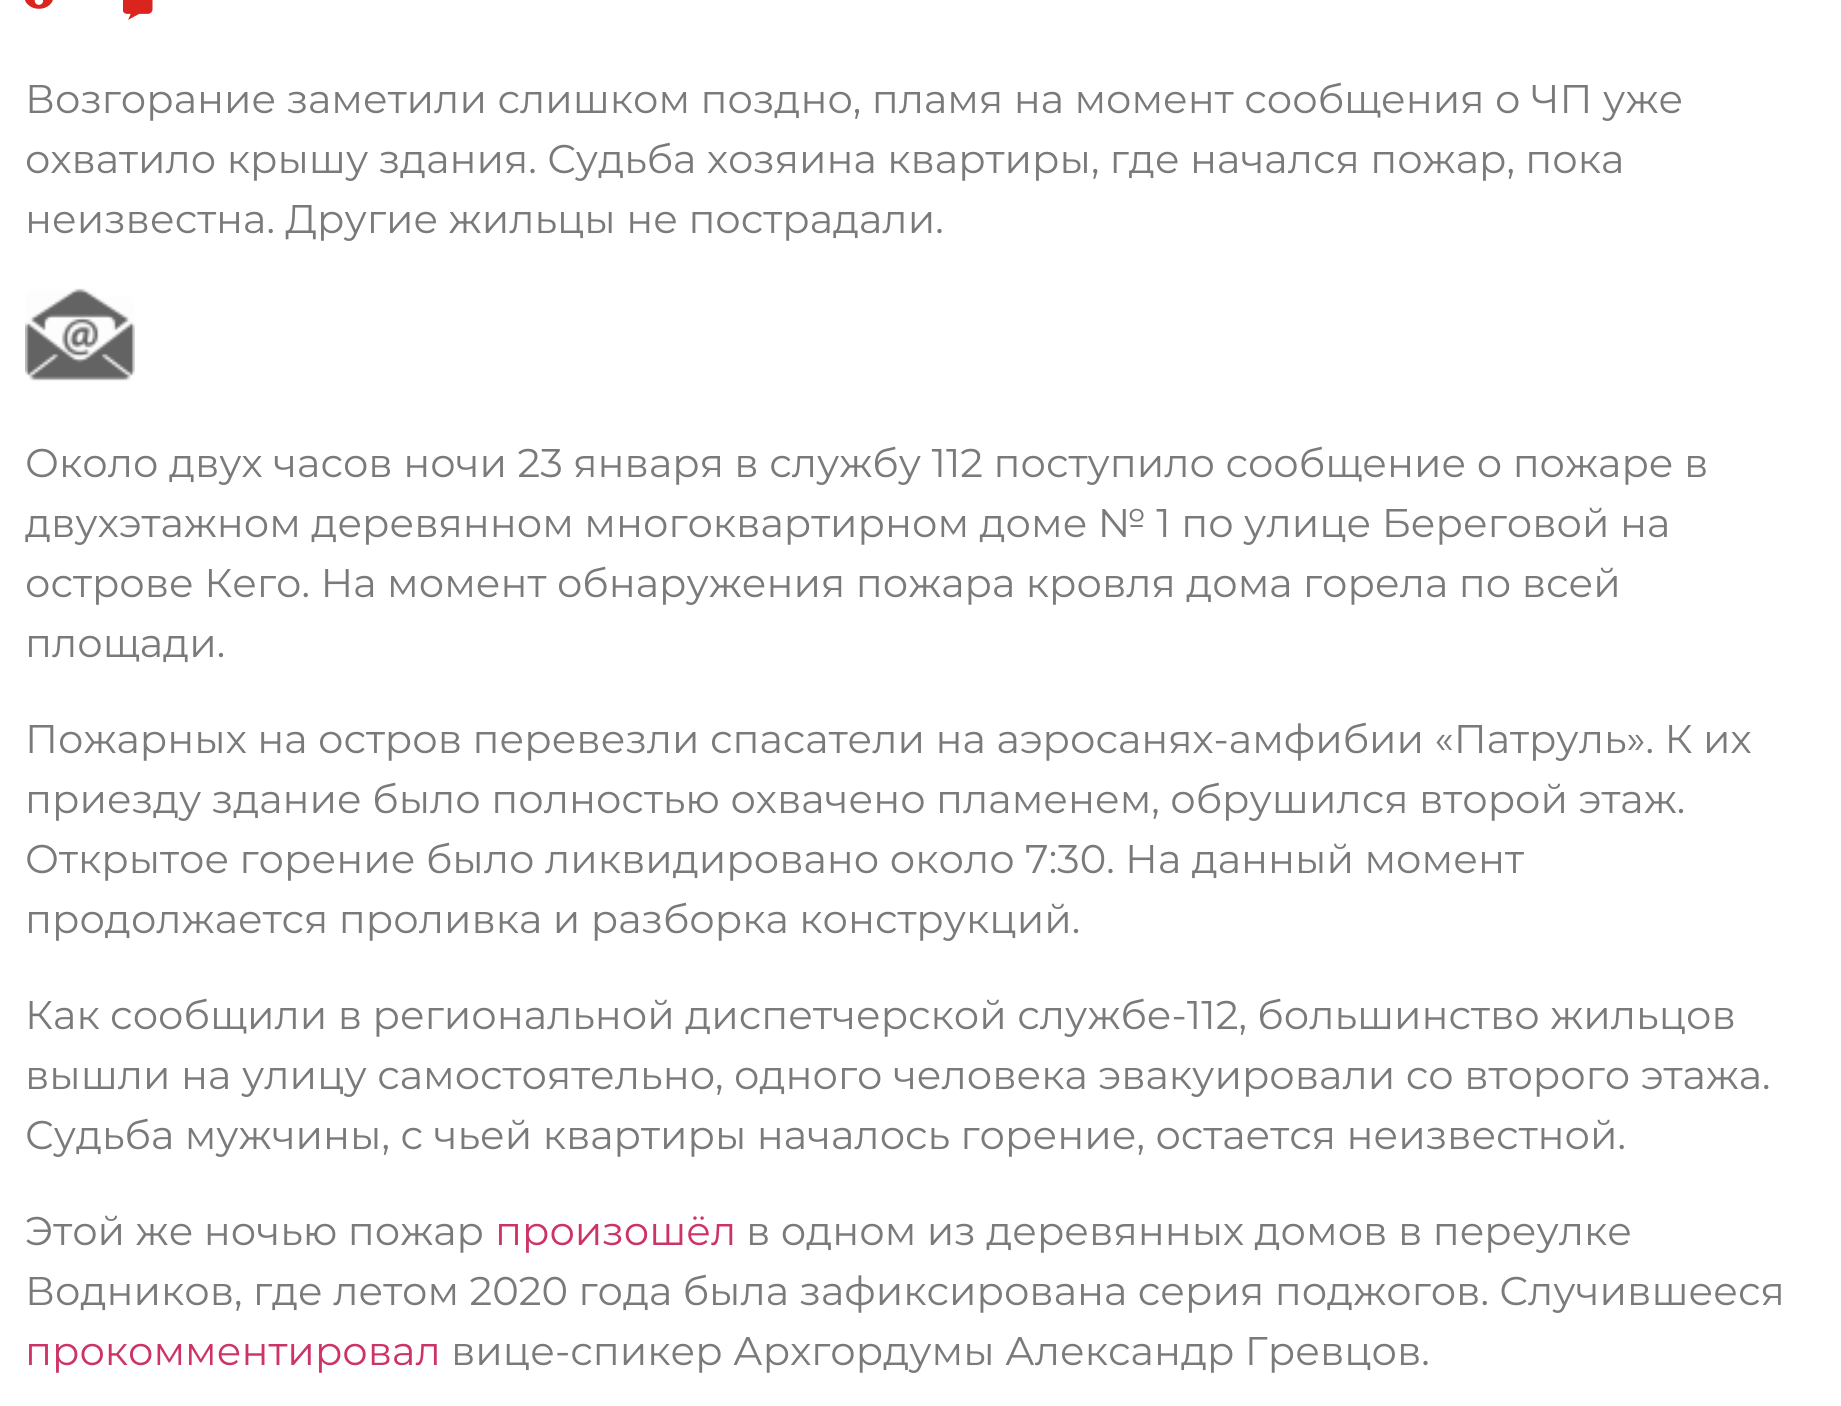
import math
import cairo


def use_color(cr, r, g, b):
  cr.set_source_rgb(r / 255, g / 255, b / 255)

def text(cr, x, y, s, family, size, color, bold=False, italic=False):
  cr.select_font_face(family, cairo.FONT_SLANT_ITALIC if italic else cairo.FONT_SLANT_NORMAL, cairo.FONT_WEIGHT_BOLD if bold else cairo.FONT_WEIGHT_NORMAL)
  cr.set_font_size(size)
  use_color(cr, *color)
  cr.move_to(x, y)
  cr.show_text(s)

def picture(cr, path, x, y, w, h):
  cr.save()
  cr.set_source_surface(cairo.ImageSurface.create_from_png(path), x, y)
  cr.rectangle(x, y, w, h)
  cr.fill()
  cr.restore()

def draw(cr):
  use_color(cr, 255, 255, 255)
  cr.paint()
  picture(cr, "img_01.png", 25, 0, 28, 9)
  picture(cr, "img_02.png", 123, 0, 30, 20)
  picture(cr, "img_03.png", 25, 288, 110, 93)
  text(cr, 25, 113, "Возгорание заметили слишком поздно, пламя на момент сообщения о ЧП уже", "Montserrat", 40, (122, 122, 122))
  text(cr, 25, 173, "охватило крышу здания. Судьба хозяина квартиры, где начался пожар, пока", "Montserrat", 40, (122, 122, 122))
  text(cr, 25, 233, "неизвестна. Другие жильцы не пострадали.", "Montserrat", 40, (122, 122, 122))
  text(cr, 25, 477, "Около двух часов ночи 23 января в службу 112 поступило сообщение о пожаре в", "Montserrat", 40, (122, 122, 122))
  text(cr, 25, 537, "двухэтажном деревянном многоквартирном доме № 1 по улице Береговой на", "Montserrat", 40, (122, 122, 122))
  text(cr, 25, 597, "острове Кего. На момент обнаружения пожара кровля дома горела по всей", "Montserrat", 40, (122, 122, 122))
  text(cr, 25, 657, "площади.", "Montserrat", 40, (122, 122, 122))
  text(cr, 25, 753, "Пожарных на остров перевезли спасатели на аэросанях-амфибии «Патруль». К их", "Montserrat", 40, (122, 122, 122))
  text(cr, 25, 813, "приезду здание было полностью охвачено пламенем, обрушился второй этаж.", "Montserrat", 40, (122, 122, 122))
  text(cr, 25, 873, "Открытое горение было ликвидировано около 7:30. На данный момент", "Montserrat", 40, (122, 122, 122))
  text(cr, 25, 933, "продолжается проливка и разборка конструкций.", "Montserrat", 40, (122, 122, 122))
  text(cr, 25, 1029, "Как сообщили в региональной диспетчерской службе-112, большинство жильцов", "Montserrat", 40, (122, 122, 122))
  text(cr, 25, 1089, "вышли на улицу самостоятельно, одного человека эвакуировали со второго этажа.", "Montserrat", 40, (122, 122, 122))
  text(cr, 25, 1149, "Судьба мужчины, с чьей квартиры началось горение, остается неизвестной.", "Montserrat", 40, (122, 122, 122))
  text(cr, 25, 1245, "Этой же ночью пожар", "Montserrat", 40, (122, 122, 122))
  text(cr, 495, 1245, "произошёл", "Montserrat", 40, (204, 51, 102))
  text(cr, 746, 1245, "в одном из деревянных домов в переулке", "Montserrat", 40, (122, 122, 122))
  text(cr, 25, 1305, "Водников, где летом 2020 года была зафиксирована серия поджогов. Случившееся", "Montserrat", 40, (122, 122, 122))
  text(cr, 25, 1365, "прокомментировал", "Montserrat", 40, (204, 51, 102))
  text(cr, 451, 1365, "вице-спикер Архгордумы Александр Гревцов.", "Montserrat", 40, (122, 122, 122))


surface = cairo.ImageSurface(cairo.FORMAT_RGB24, 1841, 1406)
cr = cairo.Context(surface)
options = cairo.FontOptions()
options.set_hint_metrics(cairo.HINT_METRICS_OFF)
options.set_hint_style(cairo.HINT_STYLE_NONE)
cr.set_font_options(options)
cr.set_miter_limit(4)
draw(cr)
surface.write_to_png("out.png")
